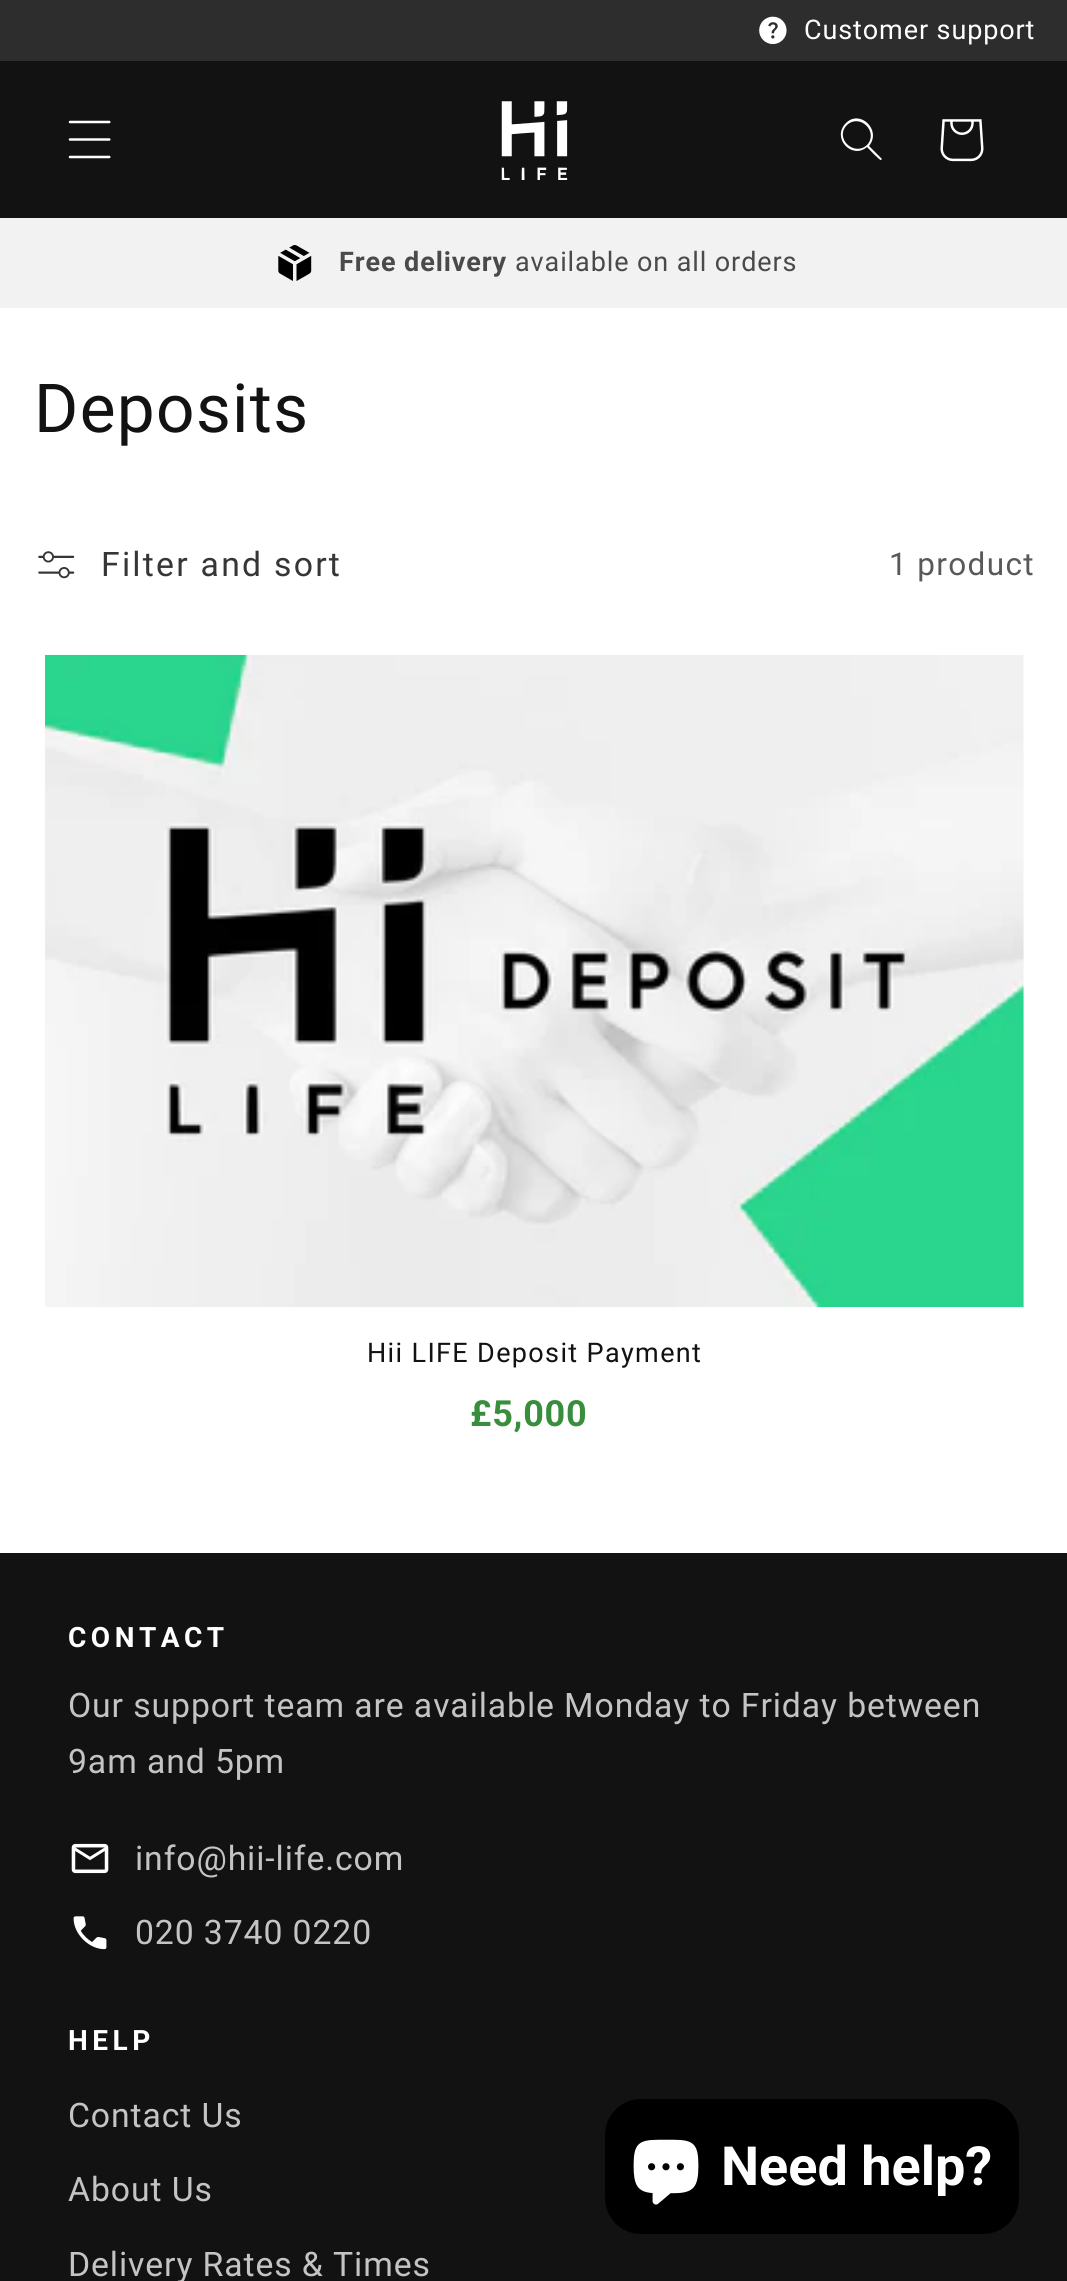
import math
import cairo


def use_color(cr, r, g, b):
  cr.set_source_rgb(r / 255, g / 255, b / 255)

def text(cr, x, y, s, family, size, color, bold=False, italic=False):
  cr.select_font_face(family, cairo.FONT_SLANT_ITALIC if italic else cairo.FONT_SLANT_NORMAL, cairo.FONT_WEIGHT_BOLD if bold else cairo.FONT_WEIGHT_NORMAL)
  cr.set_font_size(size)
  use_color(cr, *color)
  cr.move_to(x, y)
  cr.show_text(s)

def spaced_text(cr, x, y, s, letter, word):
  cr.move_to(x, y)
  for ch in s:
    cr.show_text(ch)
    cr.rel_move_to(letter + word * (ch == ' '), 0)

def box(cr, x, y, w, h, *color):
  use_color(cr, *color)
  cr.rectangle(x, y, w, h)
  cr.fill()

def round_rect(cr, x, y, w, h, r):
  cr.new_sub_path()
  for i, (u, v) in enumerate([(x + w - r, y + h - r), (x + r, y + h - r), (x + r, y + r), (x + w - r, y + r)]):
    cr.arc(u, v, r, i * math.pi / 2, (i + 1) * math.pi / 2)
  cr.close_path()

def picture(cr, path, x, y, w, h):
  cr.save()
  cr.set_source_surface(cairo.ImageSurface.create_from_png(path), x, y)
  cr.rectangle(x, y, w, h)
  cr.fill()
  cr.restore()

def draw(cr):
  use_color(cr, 255, 255, 255)
  cr.paint()
  box(cr, 0, 0, 1067, 61, 45, 45, 45)
  picture(cr, "img_01.png", 759, 16, 28, 29)
  box(cr, 0, 61, 1067, 157, 18, 18, 18)
  picture(cr, "img_02.png", 68, 120, 43, 39)
  picture(cr, "img_03.png", 501, 101, 67, 79)
  use_color(cr, 255, 255, 255)
  cr.set_fill_rule(cairo.FILL_RULE_EVEN_ODD)
  cr.new_path()
  cr.move_to(867, 145)
  cr.curve_to(854, 157, 834, 138, 847, 125)
  cr.curve_to(860, 113, 879, 132, 867, 145)
  cr.close_path()
  cr.move_to(867, 147)
  cr.curve_to(852, 160, 831, 138, 846, 123)
  cr.curve_to(860, 109, 882, 130, 869, 146)
  cr.line_to(882, 159)
  cr.line_to(881, 160)
  cr.curve_to(880, 161, 869, 149, 867, 147)
  cr.close_path()
  cr.fill()
  picture(cr, "img_04.png", 940, 119, 44, 43)
  box(cr, 0, 218, 1067, 90, 242, 242, 242)
  picture(cr, "img_05.png", 278, 245, 34, 36)
  picture(cr, "img_06.png", 38, 551, 37, 28)
  picture(cr, "img_07.png", 45, 654, 979, 654)
  box(cr, 0, 1553, 1067, 728, 18, 18, 18)
  picture(cr, "img_08.png", 71, 1843, 38, 31)
  picture(cr, "img_09.png", 73, 1916, 34, 34)
  use_color(cr, 0, 0, 0)
  round_rect(cr, 605, 2099, 414, 135, 36)
  cr.fill()
  picture(cr, "img_10.png", 633, 2139, 66, 66)
  cr.select_font_face("Roboto")
  cr.set_font_size(27)
  use_color(cr, 255, 255, 255)
  spaced_text(cr, 804, 39, "Customer support", 0.9, 0)
  cr.select_font_face("Roboto", cairo.FONT_SLANT_NORMAL, cairo.FONT_WEIGHT_BOLD)
  use_color(cr, 74, 74, 74)
  spaced_text(cr, 339, 271, "Free delivery", 0.9, 0)
  cr.select_font_face("Roboto")
  spaced_text(cr, 515, 271, "available on all orders", 0.9, 0)
  cr.set_font_size(67.5)
  use_color(cr, 18, 18, 18)
  spaced_text(cr, 34, 432, "Deposits", 1.35, 0)
  cr.set_font_size(33.75)
  use_color(cr, 54, 54, 54)
  spaced_text(cr, 101, 576, "Filter and sort", 2.25, 0)
  cr.set_font_size(31.5)
  use_color(cr, 89, 89, 89)
  spaced_text(cr, 889, 575, "1 product", 1.35, 0)
  cr.set_font_size(27)
  use_color(cr, 18, 18, 18)
  spaced_text(cr, 367, 1362, "Hii LIFE Deposit Payment", 1.35, 0)
  cr.select_font_face("Roboto", cairo.FONT_SLANT_NORMAL, cairo.FONT_WEIGHT_BOLD)
  cr.set_font_size(36)
  use_color(cr, 56, 142, 60)
  spaced_text(cr, 470, 1426, "£5,000", 0.75, 0)
  cr.set_font_size(28)
  use_color(cr, 255, 255, 255)
  spaced_text(cr, 68, 1647, "CONTACT", 4.5, 0)
  cr.select_font_face("Roboto")
  cr.set_font_size(33.75)
  use_color(cr, 196, 196, 196)
  spaced_text(cr, 68, 1717, "Our support team are available Monday to Friday between", 0.9, 0)
  spaced_text(cr, 68, 1773, "9am and 5pm", 0.9, 0)
  spaced_text(cr, 135, 1870, "info@hii-life.com", 0.9, 0)
  spaced_text(cr, 135, 1944, "020 3740 0220", 0.9, 0)
  cr.select_font_face("Roboto", cairo.FONT_SLANT_NORMAL, cairo.FONT_WEIGHT_BOLD)
  cr.set_font_size(28)
  use_color(cr, 255, 255, 255)
  spaced_text(cr, 68, 2050, "HELP", 4.5, 0)
  cr.select_font_face("Roboto")
  cr.set_font_size(33.75)
  use_color(cr, 196, 196, 196)
  spaced_text(cr, 68, 2127, "Contact Us", 0.9, 0)
  spaced_text(cr, 68, 2201, "About Us", 0.9, 0)
  spaced_text(cr, 68, 2276, "Delivery Rates & Times", 0.9, 0)
  text(cr, 721, 2185, "Need help?", "Roboto", 54, (255, 255, 255), bold=True)


surface = cairo.ImageSurface(cairo.FORMAT_RGB24, 1067, 2281)
cr = cairo.Context(surface)
options = cairo.FontOptions()
options.set_hint_metrics(cairo.HINT_METRICS_OFF)
options.set_hint_style(cairo.HINT_STYLE_NONE)
cr.set_font_options(options)
cr.set_miter_limit(4)
draw(cr)
surface.write_to_png("out.png")
